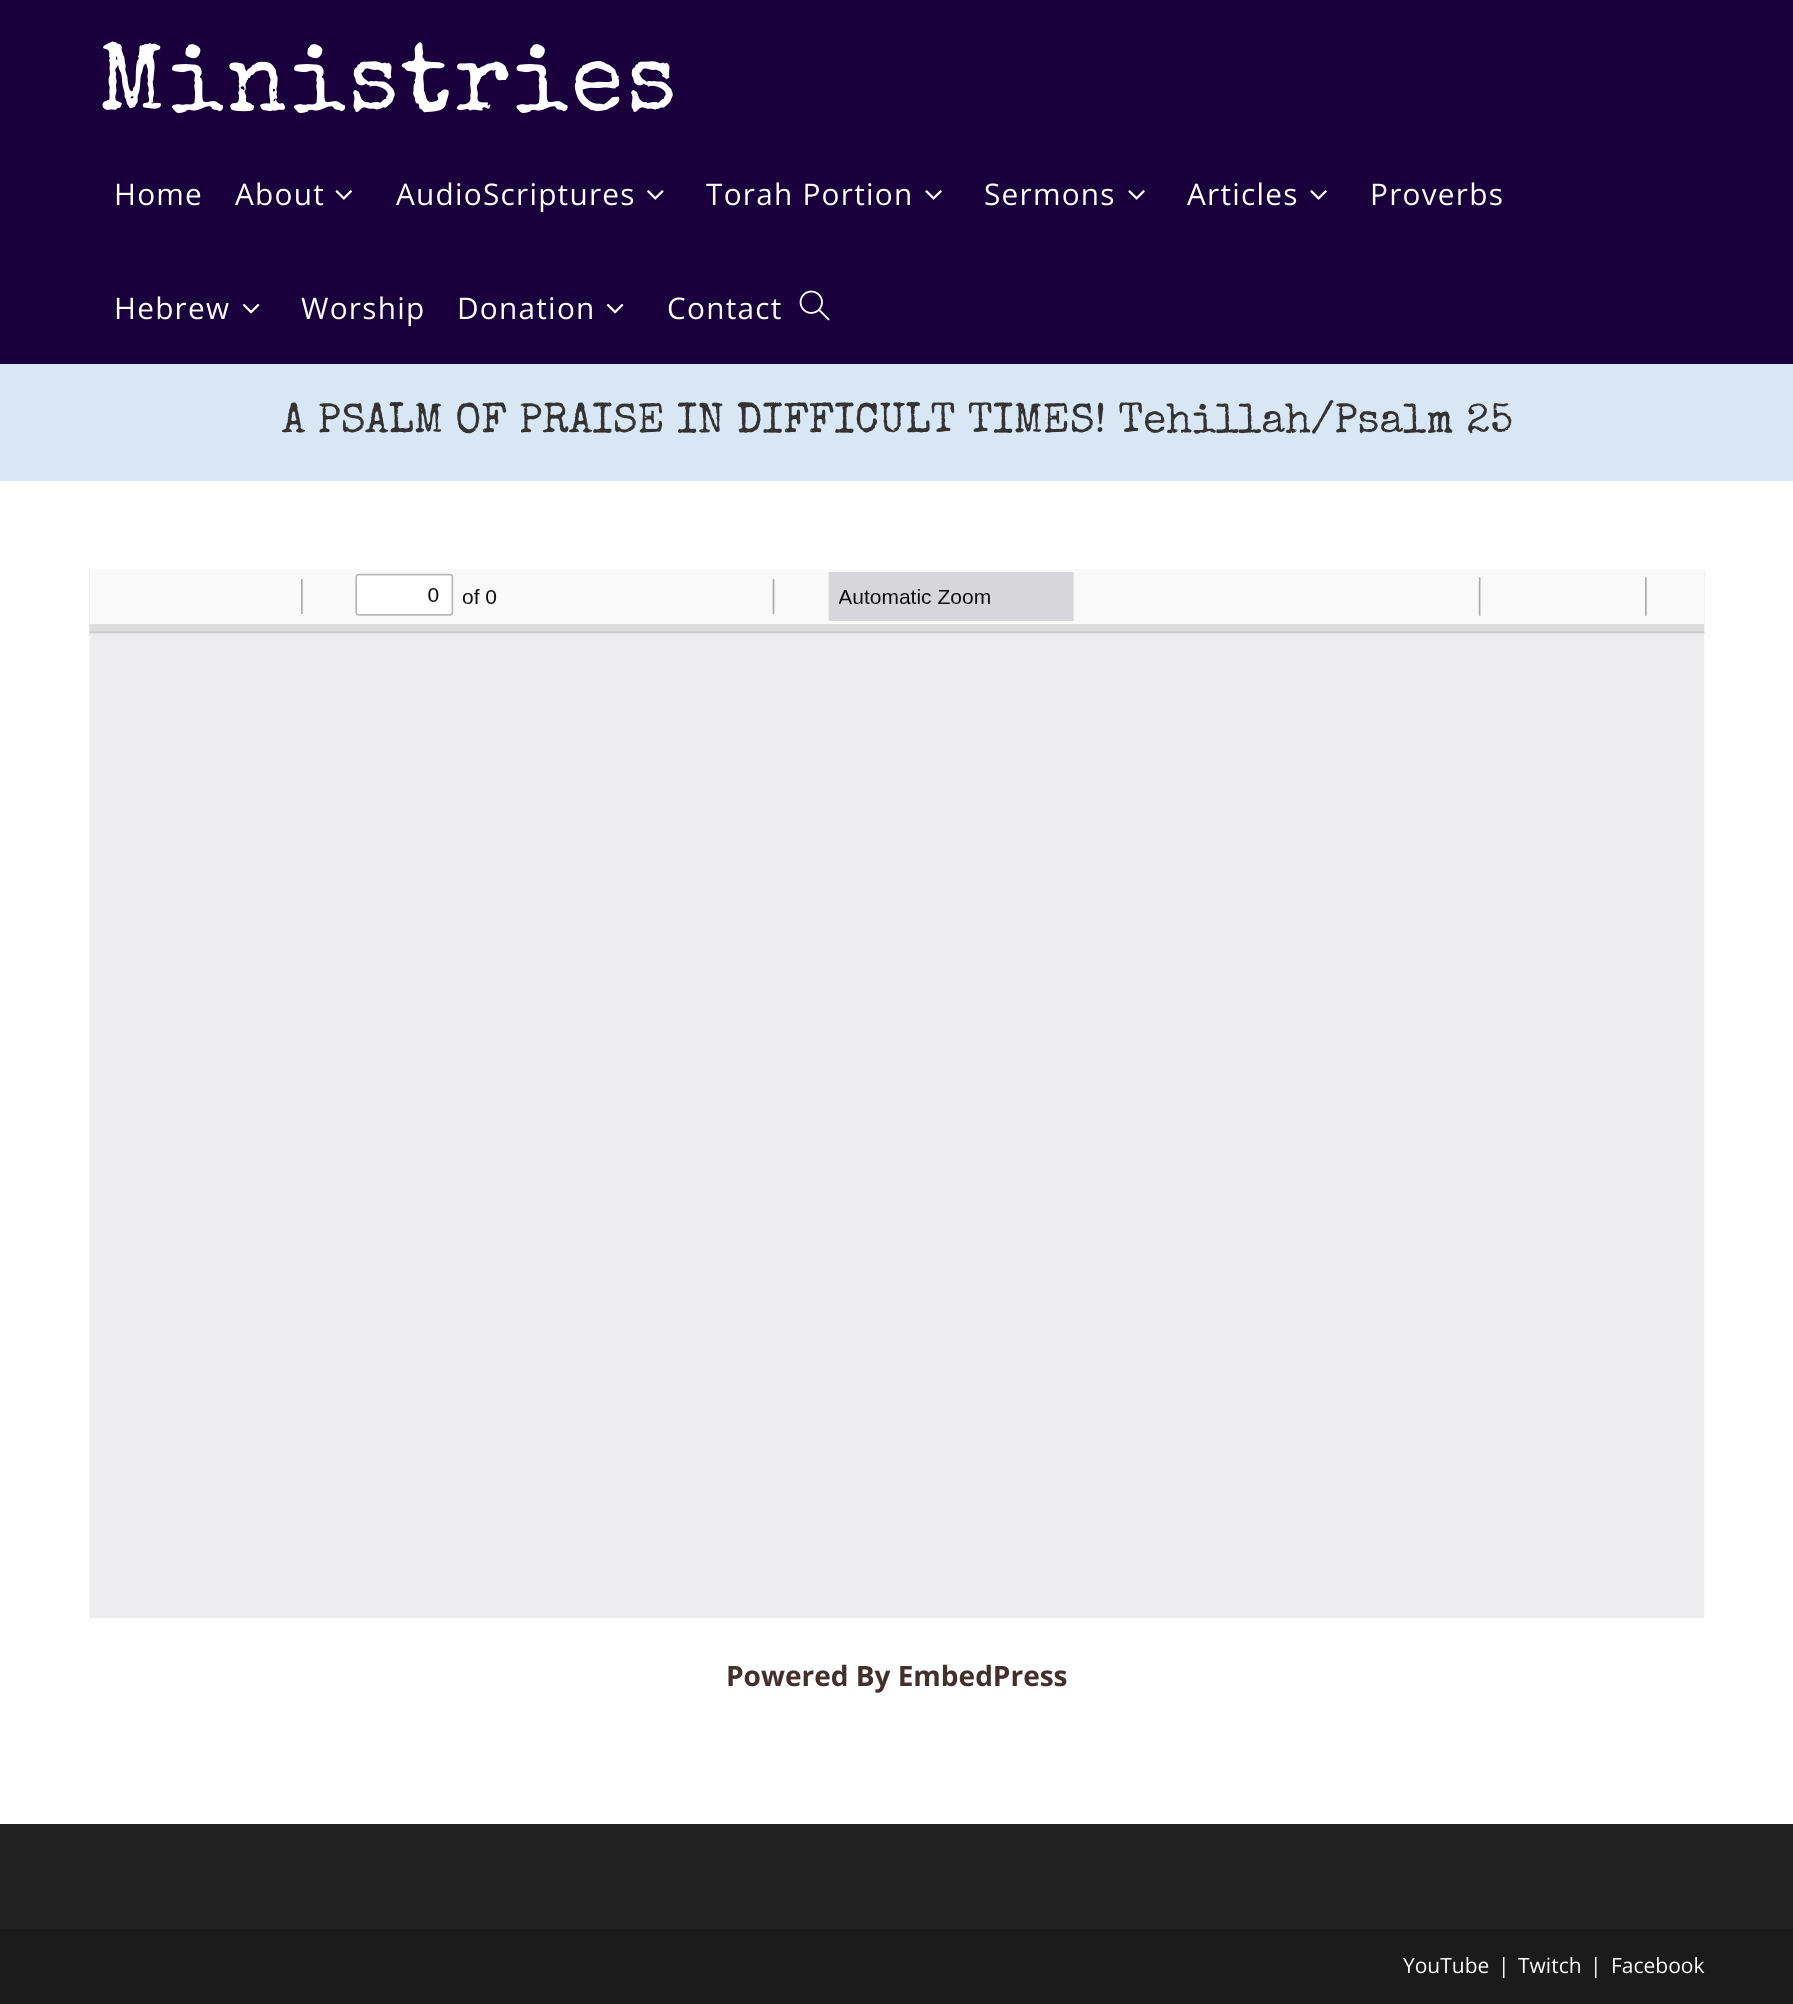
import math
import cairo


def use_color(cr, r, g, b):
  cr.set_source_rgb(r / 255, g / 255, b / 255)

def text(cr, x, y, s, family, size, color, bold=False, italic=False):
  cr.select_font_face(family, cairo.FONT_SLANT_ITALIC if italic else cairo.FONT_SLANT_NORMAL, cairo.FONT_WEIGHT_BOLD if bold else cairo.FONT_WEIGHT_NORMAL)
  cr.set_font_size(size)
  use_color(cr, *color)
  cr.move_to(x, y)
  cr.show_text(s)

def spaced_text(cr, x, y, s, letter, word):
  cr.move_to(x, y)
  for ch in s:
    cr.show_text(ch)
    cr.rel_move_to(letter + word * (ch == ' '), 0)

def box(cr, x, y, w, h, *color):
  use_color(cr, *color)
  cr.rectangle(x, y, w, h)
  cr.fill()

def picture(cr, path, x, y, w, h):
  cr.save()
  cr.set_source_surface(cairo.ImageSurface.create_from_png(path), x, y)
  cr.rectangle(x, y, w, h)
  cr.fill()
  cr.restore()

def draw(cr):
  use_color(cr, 255, 255, 255)
  cr.paint()
  box(cr, 0, 0, 1793, 364, 25, 0, 61)
  picture(cr, "img_01.png", 335, 190, 18, 10)
  picture(cr, "img_02.png", 647, 190, 17, 10)
  picture(cr, "img_03.png", 925, 190, 17, 10)
  picture(cr, "img_03.png", 1128, 190, 17, 10)
  picture(cr, "img_03.png", 1310, 190, 17, 10)
  picture(cr, "img_04.png", 242, 303, 18, 11)
  picture(cr, "img_04.png", 606, 303, 18, 11)
  picture(cr, "img_05.png", 799, 290, 31, 31)
  box(cr, 0, 364, 1793, 117, 217, 231, 244)
  picture(cr, "img_06.png", 89, 569, 1616, 1050)
  box(cr, 0, 1824, 1793, 105, 34, 34, 34)
  box(cr, 0, 1929, 1793, 75, 27, 27, 27)
  cr.select_font_face("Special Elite")
  cr.set_font_size(96.25)
  use_color(cr, 255, 255, 255)
  spaced_text(cr, 98, 109, "Ministries", 3.25, 0)
  cr.select_font_face("Open Sans")
  cr.set_font_size(29.75)
  spaced_text(cr, 114, 205, "Home", 1.25, 0)
  spaced_text(cr, 235, 205, "About", 1.25, 0)
  spaced_text(cr, 396, 205, "AudioScriptures", 1.25, 0)
  spaced_text(cr, 706, 205, "Torah Portion", 1.25, 0)
  spaced_text(cr, 984, 205, "Sermons", 1.25, 0)
  spaced_text(cr, 1187, 205, "Articles", 1.25, 0)
  spaced_text(cr, 1370, 205, "Proverbs", 1.25, 0)
  spaced_text(cr, 114, 319, "Hebrew", 1.25, 0)
  spaced_text(cr, 301, 319, "Worship", 1.25, 0)
  spaced_text(cr, 457, 319, "Donation", 1.25, 0)
  spaced_text(cr, 667, 319, "Contact", 1.25, 0)
  text(cr, 282, 432, "A PSALM OF PRAISE IN DIFFICULT TIMES! Tehillah/Psalm 25", "Special Elite", 42, (51, 51, 51))
  text(cr, 726, 1686, "Powered By EmbedPress", "Open Sans", 28, (68, 47, 47), bold=True)
  text(cr, 1403, 1973, "YouTube", "Open Sans", 21, (255, 255, 255))
  text(cr, 1498, 1973, "|", "Open Sans", 21, (255, 255, 255))
  text(cr, 1518, 1973, "Twitch", "Open Sans", 21, (255, 255, 255))
  text(cr, 1590, 1973, "|", "Open Sans", 21, (255, 255, 255))
  text(cr, 1611, 1973, "Facebook", "Open Sans", 21, (255, 255, 255))


surface = cairo.ImageSurface(cairo.FORMAT_RGB24, 1793, 2004)
cr = cairo.Context(surface)
options = cairo.FontOptions()
options.set_hint_metrics(cairo.HINT_METRICS_OFF)
options.set_hint_style(cairo.HINT_STYLE_NONE)
cr.set_font_options(options)
cr.set_miter_limit(4)
draw(cr)
surface.write_to_png("out.png")
